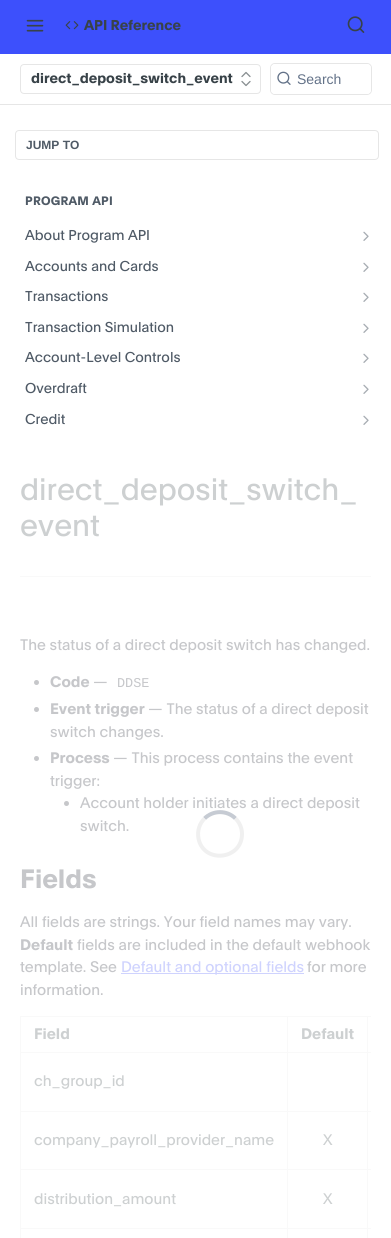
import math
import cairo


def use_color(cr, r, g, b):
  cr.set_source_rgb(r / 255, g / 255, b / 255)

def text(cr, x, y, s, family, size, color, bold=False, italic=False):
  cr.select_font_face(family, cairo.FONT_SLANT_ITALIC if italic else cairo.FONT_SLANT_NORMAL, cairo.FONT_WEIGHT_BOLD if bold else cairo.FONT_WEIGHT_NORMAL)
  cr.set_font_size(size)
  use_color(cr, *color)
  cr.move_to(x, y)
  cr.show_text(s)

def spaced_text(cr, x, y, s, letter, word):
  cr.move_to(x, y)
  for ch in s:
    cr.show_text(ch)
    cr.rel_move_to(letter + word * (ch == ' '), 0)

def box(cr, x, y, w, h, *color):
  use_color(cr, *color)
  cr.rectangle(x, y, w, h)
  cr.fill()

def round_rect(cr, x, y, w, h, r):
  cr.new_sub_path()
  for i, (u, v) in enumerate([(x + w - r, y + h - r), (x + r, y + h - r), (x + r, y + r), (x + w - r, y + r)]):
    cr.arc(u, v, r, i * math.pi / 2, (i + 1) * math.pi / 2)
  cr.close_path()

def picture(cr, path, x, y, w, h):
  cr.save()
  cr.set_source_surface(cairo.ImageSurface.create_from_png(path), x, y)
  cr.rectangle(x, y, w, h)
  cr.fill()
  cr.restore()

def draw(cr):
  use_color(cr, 255, 255, 255)
  cr.paint()
  box(cr, 0, 104, 391, 1, 230, 230, 230)
  box(cr, 0, 0, 391, 54, 61, 80, 252)
  picture(cr, "img_01.png", 26, 19, 18, 13)
  picture(cr, "img_02.png", 65, 21, 14, 9)
  picture(cr, "img_03.png", 347, 16, 18, 17)
  round_rect(cr, 20.5, 64.5, 240, 29, 3.5)
  use_color(cr, 230, 230, 230)
  cr.set_line_width(1)
  cr.stroke()
  cr.new_path()
  cr.move_to(242, 81.5)
  cr.line_to(246, 85.5)
  cr.line_to(250, 81.5)
  cr.move_to(250, 76.5)
  cr.line_to(246, 72.5)
  cr.line_to(242, 76.5)
  use_color(cr, 136, 142, 145)
  cr.set_line_width(1.3)
  cr.set_line_cap(cairo.LINE_CAP_ROUND)
  cr.set_line_join(cairo.LINE_JOIN_ROUND)
  cr.stroke()
  round_rect(cr, 270.5, 63.5, 101, 31, 4.5)
  use_color(cr, 230, 230, 230)
  cr.set_line_width(1)
  cr.set_line_cap(cairo.LINE_CAP_BUTT)
  cr.set_line_join(cairo.LINE_JOIN_MITER)
  cr.stroke()
  use_color(cr, 255, 255, 255)
  round_rect(cr, 271, 64, 100, 30, 4)
  cr.fill()
  picture(cr, "img_04.png", 277, 71, 14, 14)
  round_rect(cr, 15.5, 130.5, 363, 29, 3.5)
  use_color(cr, 230, 230, 230)
  cr.stroke()
  picture(cr, "img_05.png", 363, 231, 6, 10)
  picture(cr, "img_05.png", 363, 262, 6, 10)
  picture(cr, "img_05.png", 363, 292, 6, 10)
  picture(cr, "img_05.png", 363, 323, 6, 10)
  picture(cr, "img_05.png", 363, 353, 6, 10)
  picture(cr, "img_05.png", 363, 384, 6, 10)
  picture(cr, "img_05.png", 363, 415, 6, 10)
  box(cr, 20, 576, 351, 1, 249, 249, 249)
  use_color(cr, 198, 199, 202)
  cr.arc(36.5, 682.5, 2.5, 0, 2 * math.pi)
  cr.fill()
  cr.arc(36.5, 709.5, 2.5, 0, 2 * math.pi)
  cr.fill()
  cr.arc(36.5, 758.5, 2.5, 0, 2 * math.pi)
  cr.fill()
  cr.arc(66.5, 803.5, 2.5, 0, 2 * math.pi)
  cr.fill()
  box(cr, 121, 973, 183, 1, 207, 211, 254)
  box(cr, 20, 1016, 351, 1, 249, 249, 249)
  box(cr, 20, 1016, 1, 222, 249, 249, 249)
  box(cr, 367, 1052, 4, 1, 249, 249, 249)
  box(cr, 20, 1228, 351, 1, 249, 249, 249)
  box(cr, 20, 1111, 351, 1, 249, 249, 249)
  box(cr, 20, 1169, 351, 1, 249, 249, 249)
  box(cr, 367, 1111, 1, 127, 249, 249, 249)
  box(cr, 367, 1052, 1, 60, 249, 249, 249)
  box(cr, 287, 1052, 81, 1, 249, 249, 249)
  box(cr, 287, 1111, 1, 127, 249, 249, 249)
  box(cr, 287, 1052, 1, 60, 249, 249, 249)
  box(cr, 20, 1052, 268, 1, 249, 249, 249)
  box(cr, 287, 1016, 1, 37, 249, 249, 249)
  box(cr, 367, 1016, 1, 37, 249, 249, 249)
  text(cr, 84, 30, "API Reference", "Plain", 14, (56, 66, 72), bold=True)
  text(cr, 31, 83, "direct_deposit_switch_event", "Plain", 14, (56, 66, 72), bold=True)
  text(cr, 297, 84, "Search", "Liberation Sans", 14, (99, 114, 136))
  text(cr, 26, 149, "JUMP TO", "Liberation Sans", 12, (79, 90, 102), bold=True)
  cr.select_font_face("Plain", cairo.FONT_SLANT_NORMAL, cairo.FONT_WEIGHT_BOLD)
  spaced_text(cr, 25, 205, "PROGRAM API", 0.25, 0)
  text(cr, 25, 240, "About Program API", "Plain", 14, (79, 90, 102))
  text(cr, 25, 271, "Accounts and Cards", "Plain", 14, (79, 90, 102))
  text(cr, 25, 301, "Transactions", "Plain", 14, (79, 90, 102))
  text(cr, 25, 332, "Transaction Simulation", "Plain", 14, (79, 90, 102))
  text(cr, 25, 362, "Account-Level Controls", "Plain", 14, (79, 90, 102))
  text(cr, 25, 393, "Overdraft", "Plain", 14, (79, 90, 102))
  text(cr, 25, 424, "Credit", "Plain", 14, (79, 90, 102))
  text(cr, 20, 500, "direct_deposit_switch_", "Plain", 30.4, (205, 208, 209))
  text(cr, 20, 536, "event", "Plain", 30.4, (205, 208, 209))
  text(cr, 20, 650, "The status of a direct deposit switch has changed.", "Plain", 15, (198, 199, 202))
  text(cr, 50, 687, "Code", "Plain", 15, (198, 199, 202), bold=True)
  text(cr, 93, 687, "—", "Plain", 15, (198, 199, 202))
  text(cr, 117, 687, "DDSE", "Liberation Mono", 13.5, (198, 199, 202))
  text(cr, 50, 714, "Event trigger", "Plain", 15, (198, 199, 202), bold=True)
  text(cr, 148, 714, "— The status of a direct deposit", "Plain", 15, (198, 199, 202))
  text(cr, 50, 737, "switch changes.", "Plain", 15, (198, 199, 202))
  text(cr, 50, 763, "Process", "Plain", 15, (198, 199, 202), bold=True)
  text(cr, 113, 763, "— This process contains the event", "Plain", 15, (198, 199, 202))
  text(cr, 50, 786, "trigger:", "Plain", 15, (198, 199, 202))
  text(cr, 80, 808, "Account holder initiates a direct deposit", "Plain", 15, (198, 199, 202))
  text(cr, 80, 831, "switch.", "Plain", 15, (198, 199, 202))
  text(cr, 20, 888, "Fields", "Plain", 26, (198, 199, 202), bold=True)
  text(cr, 20, 927, "All fields are strings. Your field names may vary.", "Plain", 15, (198, 199, 202))
  text(cr, 20, 950, "Default", "Plain", 15, (198, 199, 202), bold=True)
  text(cr, 77, 950, "fields are included in the default webhook", "Plain", 15, (198, 199, 202))
  text(cr, 20, 972, "template. See", "Plain", 15, (198, 199, 202))
  text(cr, 121, 972, "Default and optional fields", "Plain", 15, (207, 211, 254))
  text(cr, 307, 972, "for more", "Plain", 15, (198, 199, 202))
  text(cr, 20, 995, "information.", "Plain", 15, (198, 199, 202))
  text(cr, 34, 1039, "Field", "Plain", 15, (205, 208, 209), bold=True)
  text(cr, 301, 1039, "Default", "Plain", 15, (205, 208, 209), bold=True)
  text(cr, 34, 1086, "ch_group_id", "Plain", 15, (205, 208, 209))
  text(cr, 34, 1145, "company_payroll_provider_name", "Plain", 15, (205, 208, 209))
  text(cr, 323, 1145, "X", "Plain", 15, (205, 208, 209))
  text(cr, 34, 1204, "distribution_amount", "Plain", 15, (205, 208, 209))
  text(cr, 323, 1204, "X", "Plain", 15, (205, 208, 209))
  cr.new_path()
  cr.move_to(204.5, 818.5)
  cr.curve_to(213, 810, 227, 810, 235.5, 818.5)
  use_color(cr, 198, 203, 211)
  cr.set_line_width(4)
  cr.stroke()
  cr.new_path()
  cr.move_to(235.5, 818.5)
  cr.curve_to(239.5, 822.5, 242, 828, 242, 834)
  cr.curve_to(242, 860, 203.5, 864, 198.5, 838.5)
  cr.curve_to(197, 831, 199.5, 823.5, 204.5, 818.5)
  use_color(cr, 240, 240, 240)
  cr.stroke()


surface = cairo.ImageSurface(cairo.FORMAT_RGB24, 391, 1238)
cr = cairo.Context(surface)
options = cairo.FontOptions()
options.set_hint_metrics(cairo.HINT_METRICS_OFF)
options.set_hint_style(cairo.HINT_STYLE_NONE)
cr.set_font_options(options)
cr.set_miter_limit(4)
draw(cr)
surface.write_to_png("out.png")
